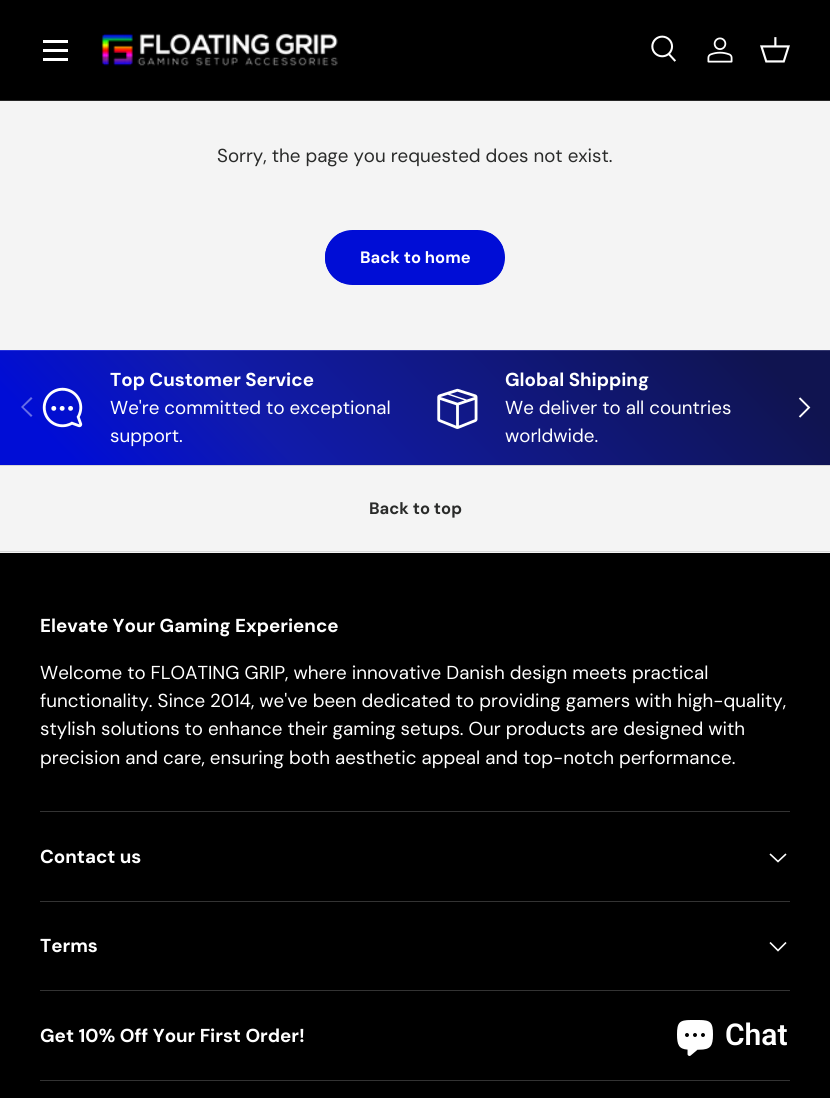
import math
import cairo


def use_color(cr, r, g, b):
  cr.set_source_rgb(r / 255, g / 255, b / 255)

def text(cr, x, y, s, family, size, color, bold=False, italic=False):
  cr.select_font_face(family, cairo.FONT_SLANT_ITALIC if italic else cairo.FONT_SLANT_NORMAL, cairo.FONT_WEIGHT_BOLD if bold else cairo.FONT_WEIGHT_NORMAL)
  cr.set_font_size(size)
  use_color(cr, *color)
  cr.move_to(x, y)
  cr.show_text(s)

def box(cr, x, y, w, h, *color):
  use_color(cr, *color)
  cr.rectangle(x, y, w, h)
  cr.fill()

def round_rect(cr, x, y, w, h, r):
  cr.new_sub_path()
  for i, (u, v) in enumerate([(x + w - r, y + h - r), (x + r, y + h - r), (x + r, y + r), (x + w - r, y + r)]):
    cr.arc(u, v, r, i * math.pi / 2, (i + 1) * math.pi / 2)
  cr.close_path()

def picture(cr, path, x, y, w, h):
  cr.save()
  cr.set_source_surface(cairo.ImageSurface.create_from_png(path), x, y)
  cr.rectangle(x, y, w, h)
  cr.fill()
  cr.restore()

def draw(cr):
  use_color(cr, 244, 244, 244)
  cr.paint()
  box(cr, 0, 0, 830, 100, 0, 0, 0)
  box(cr, 0, 100, 830, 1, 38, 38, 38)
  box(cr, 43, 40, 25, 3, 255, 255, 255)
  box(cr, 43, 58, 25, 3, 255, 255, 255)
  box(cr, 43, 49, 25, 3, 255, 255, 255)
  picture(cr, "img_01.png", 101, 33, 237, 33)
  picture(cr, "img_02.png", 651, 35, 25, 27)
  picture(cr, "img_03.png", 707, 37, 26, 26)
  picture(cr, "img_04.png", 760, 37, 30, 26)
  cr.save()
  round_rect(cr, 325, 230, 180, 55, 27.5)
  cr.clip()
  gradient = cairo.LinearGradient(-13, 194, 493, 321)
  gradient.add_color_stop_rgba(0.6, 0.2, 0.243, 0.871, 1)
  gradient.add_color_stop_rgba(0.6, 0, 0.051, 0.839, 1)
  gradient.add_color_stop_rgba(1, 0, 0.051, 0.839, 1)
  cr.set_source(gradient)
  cr.rectangle(325, 233, 178, 50)
  cr.fill()
  cr.restore()
  round_rect(cr, 326.5, 231.5, 177, 52, 26)
  use_color(cr, 0, 13, 214)
  cr.set_line_width(3)
  cr.stroke()
  gradient = cairo.LinearGradient(172, 529, 658, 60)
  gradient.add_color_stop_rgba(0.08, 0.149, 0.192, 0.863, 1)
  gradient.add_color_stop_rgba(0.32, 0.208, 0.239, 0.718, 1)
  gradient.add_color_stop_rgba(0.92, 0.204, 0.216, 0.416, 1)
  cr.set_source(gradient)
  cr.rectangle(0, 350, 830, 1)
  cr.fill()
  gradient = cairo.LinearGradient(172, 643, 658, 173)
  gradient.add_color_stop_rgba(0.08, 0, 0.051, 0.839, 1)
  gradient.add_color_stop_rgba(0.32, 0.067, 0.106, 0.667, 1)
  gradient.add_color_stop_rgba(0.92, 0.063, 0.078, 0.314, 1)
  cr.set_source(gradient)
  cr.rectangle(0, 351, 830, 114)
  cr.fill()
  picture(cr, "img_05.png", 42, 387, 41, 41)
  picture(cr, "img_06.png", 437, 388, 41, 41)
  cr.set_source_rgba(1, 1, 1, 0.4)
  cr.new_path()
  cr.move_to(21, 407)
  cr.line_to(31, 397)
  cr.line_to(32.5, 398.5)
  cr.line_to(23.5, 407)
  cr.line_to(32.5, 415.5)
  cr.line_to(31, 417)
  cr.close_path()
  cr.fill()
  cr.new_path()
  cr.move_to(799.5, 398)
  cr.line_to(809, 407.5)
  cr.line_to(799.5, 417)
  use_color(cr, 255, 255, 255)
  cr.set_line_width(1.9)
  cr.stroke()
  box(cr, 0, 465, 830, 1, 214, 214, 214)
  box(cr, 0, 551, 830, 1, 214, 214, 214)
  box(cr, 0, 553, 830, 545, 0, 0, 0)
  box(cr, 40, 811, 750, 1, 51, 51, 51)
  box(cr, 40, 901, 750, 1, 51, 51, 51)
  cr.new_path()
  cr.move_to(786, 854)
  cr.line_to(778, 861.5)
  cr.line_to(770, 854)
  use_color(cr, 255, 255, 255)
  cr.set_line_width(1.6)
  cr.stroke()
  box(cr, 40, 990, 750, 1, 51, 51, 51)
  cr.new_path()
  cr.move_to(786, 942.5)
  cr.line_to(778, 950.5)
  cr.line_to(770, 942.5)
  use_color(cr, 255, 255, 255)
  cr.stroke()
  box(cr, 40, 1080, 750, 1, 51, 51, 51)
  picture(cr, "img_07.png", 677, 1020, 36, 36)
  text(cr, 217, 162, "Sorry, the page you requested does not exist.", "DM Sans", 18.75, (42, 43, 42))
  text(cr, 360, 263, "Back to home", "DM Sans", 16.5, (255, 255, 255), bold=True)
  text(cr, 110, 386, "Top Customer Service", "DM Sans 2", 18.75, (255, 255, 255), bold=True)
  text(cr, 110, 414, "We're committed to exceptional", "DM Sans", 18.75, (255, 255, 255))
  text(cr, 110, 442, "support.", "DM Sans", 18.75, (255, 255, 255))
  text(cr, 505, 386, "Global Shipping", "DM Sans 2", 18.75, (255, 255, 255), bold=True)
  text(cr, 505, 414, "We deliver to all countries", "DM Sans", 18.75, (255, 255, 255))
  text(cr, 505, 442, "worldwide.", "DM Sans", 18.75, (255, 255, 255))
  text(cr, 369, 514, "Back to top", "DM Sans", 16.5, (42, 43, 42), bold=True)
  text(cr, 40, 632, "Elevate Your Gaming Experience", "DM Sans 2", 18.75, (255, 255, 255), bold=True)
  text(cr, 40, 679, "Welcome to FLOATING GRIP, where innovative Danish design meets practical", "DM Sans", 18.75, (255, 255, 255))
  text(cr, 40, 707, "functionality. Since 2014, we've been dedicated to providing gamers with high-quality,", "DM Sans", 18.75, (255, 255, 255))
  text(cr, 40, 735, "stylish solutions to enhance their gaming setups. Our products are designed with", "DM Sans", 18.75, (255, 255, 255))
  text(cr, 40, 764, "precision and care, ensuring both aesthetic appeal and top-notch performance.", "DM Sans", 18.75, (255, 255, 255))
  text(cr, 40, 863, "Contact us", "DM Sans 2", 18.75, (255, 255, 255), bold=True)
  text(cr, 40, 952, "Terms", "DM Sans 2", 18.75, (255, 255, 255), bold=True)
  text(cr, 40, 1042, "Get 10% Off Your First Order!", "DM Sans 2", 18.75, (255, 255, 255), bold=True)
  text(cr, 725, 1045, "Chat", "Roboto SemiBold", 30, (255, 255, 255))


surface = cairo.ImageSurface(cairo.FORMAT_RGB24, 830, 1098)
cr = cairo.Context(surface)
options = cairo.FontOptions()
options.set_hint_metrics(cairo.HINT_METRICS_OFF)
options.set_hint_style(cairo.HINT_STYLE_NONE)
cr.set_font_options(options)
cr.set_miter_limit(4)
draw(cr)
surface.write_to_png("out.png")
